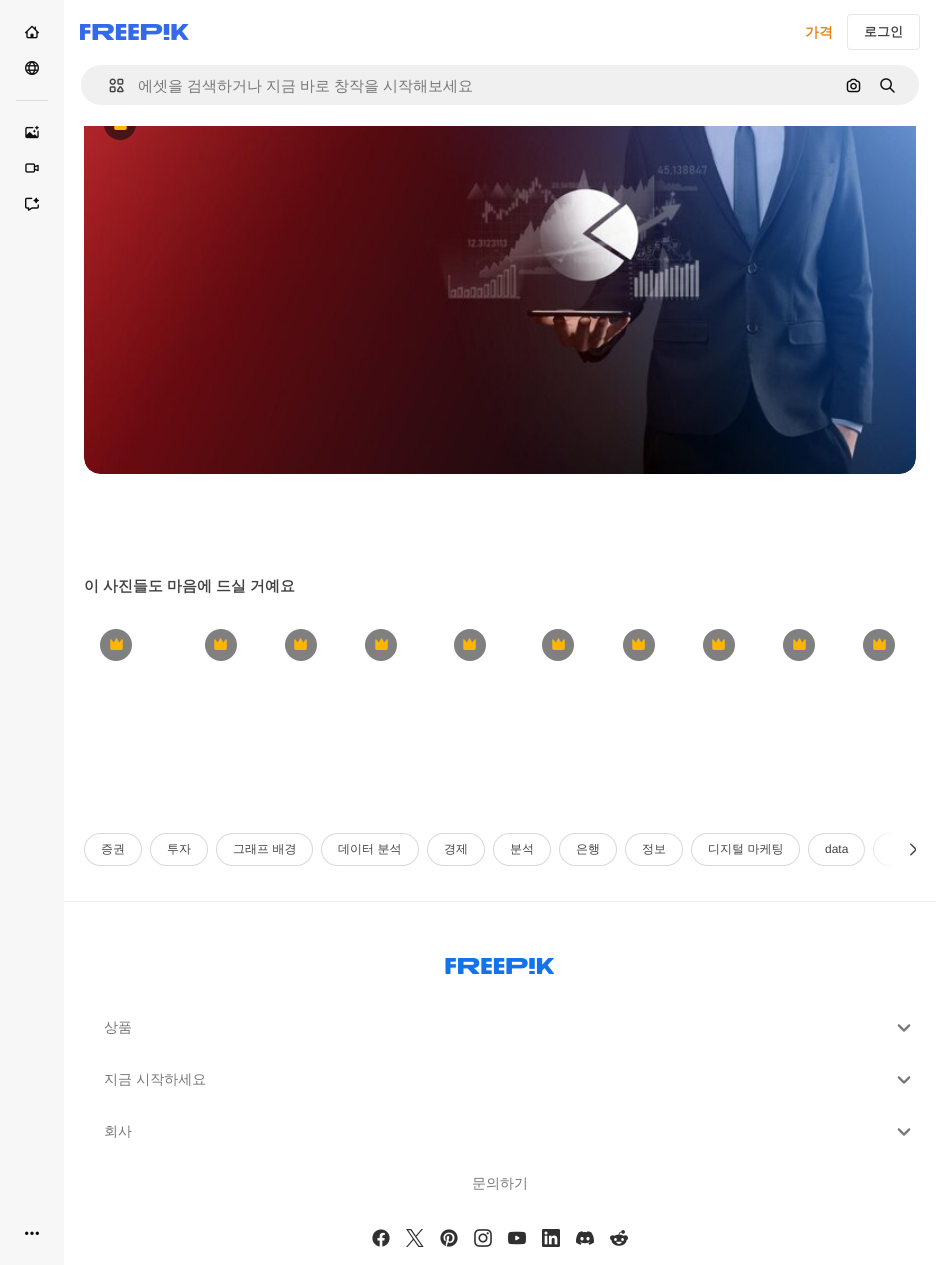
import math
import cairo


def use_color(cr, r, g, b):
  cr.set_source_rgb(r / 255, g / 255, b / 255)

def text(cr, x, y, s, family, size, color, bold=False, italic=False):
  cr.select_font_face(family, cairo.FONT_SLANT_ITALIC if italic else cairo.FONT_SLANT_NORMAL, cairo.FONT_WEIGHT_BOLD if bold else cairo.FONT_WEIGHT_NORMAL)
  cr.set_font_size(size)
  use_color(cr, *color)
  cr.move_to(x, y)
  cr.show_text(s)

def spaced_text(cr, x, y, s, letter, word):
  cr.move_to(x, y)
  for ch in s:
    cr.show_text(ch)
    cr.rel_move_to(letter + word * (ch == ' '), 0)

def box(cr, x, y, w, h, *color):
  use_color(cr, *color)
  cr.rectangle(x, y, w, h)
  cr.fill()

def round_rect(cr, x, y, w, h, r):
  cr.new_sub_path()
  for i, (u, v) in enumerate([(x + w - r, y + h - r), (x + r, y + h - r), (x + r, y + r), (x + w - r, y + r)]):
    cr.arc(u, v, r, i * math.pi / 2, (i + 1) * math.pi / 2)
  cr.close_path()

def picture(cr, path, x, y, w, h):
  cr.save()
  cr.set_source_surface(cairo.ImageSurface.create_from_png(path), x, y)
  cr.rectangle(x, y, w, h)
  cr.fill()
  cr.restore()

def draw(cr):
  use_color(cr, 255, 255, 255)
  cr.paint()
  box(cr, 0, 0, 64, 1265, 247, 247, 247)
  picture(cr, "img_01.png", 25, 25, 14, 14)
  picture(cr, "img_02.png", 25, 61, 14, 14)
  box(cr, 16, 100, 32, 1, 224, 224, 224)
  picture(cr, "img_03.png", 25, 125, 14, 14)
  picture(cr, "img_04.png", 25, 163, 14, 10)
  picture(cr, "img_05.png", 25, 197, 14, 14)
  picture(cr, "img_06.png", 25, 1231, 14, 4)
  picture(cr, "img_12.png", 84, 126, 832, 348)
  cr.set_source_rgba(0.051, 0.051, 0.051, 0.6)
  cr.arc(120, 124, 16, 0, 2 * math.pi)
  cr.fill()
  box(cr, 104, 108, 32, 18, 255, 255, 255)
  picture(cr, "img_07.png", 80, 24, 109, 16)
  round_rect(cr, 847.5, 14.5, 72, 35, 3.5)
  use_color(cr, 231, 231, 231)
  cr.set_line_width(1)
  cr.stroke()
  use_color(cr, 240, 240, 240)
  round_rect(cr, 80.5, 64.5, 839, 41, 20.5)
  cr.fill_preserve()
  use_color(cr, 255, 255, 255)
  cr.stroke()
  picture(cr, "img_08.png", 109, 78, 15, 15)
  picture(cr, "img_09.png", 846, 78, 15, 15)
  picture(cr, "img_10.png", 880, 78, 15, 15)
  picture(cr, "img_11.png", 114, 126, 13, 4)
  use_color(cr, 128, 128, 128)
  cr.arc(116, 645, 16, 0, 2 * math.pi)
  cr.fill()
  picture(cr, "img_13.png", 110, 638, 13, 12)
  cr.arc(221, 645, 16, 0, 2 * math.pi)
  cr.fill()
  picture(cr, "img_13.png", 214, 638, 13, 12)
  cr.arc(301, 645, 16, 0, 2 * math.pi)
  cr.fill()
  picture(cr, "img_13.png", 294, 638, 13, 12)
  cr.arc(381, 645, 16, 0, 2 * math.pi)
  cr.fill()
  picture(cr, "img_13.png", 375, 638, 13, 12)
  cr.arc(470, 645, 16, 0, 2 * math.pi)
  cr.fill()
  picture(cr, "img_13.png", 463, 638, 13, 12)
  cr.arc(558, 645, 16, 0, 2 * math.pi)
  cr.fill()
  picture(cr, "img_13.png", 552, 638, 13, 12)
  cr.arc(639, 645, 16, 0, 2 * math.pi)
  cr.fill()
  picture(cr, "img_13.png", 632, 638, 13, 12)
  cr.arc(719, 645, 16, 0, 2 * math.pi)
  cr.fill()
  picture(cr, "img_13.png", 712, 638, 13, 12)
  cr.arc(799, 645, 16, 0, 2 * math.pi)
  cr.fill()
  picture(cr, "img_13.png", 793, 638, 13, 12)
  cr.arc(879, 645, 16, 0, 2 * math.pi)
  cr.fill()
  picture(cr, "img_13.png", 873, 638, 13, 12)
  round_rect(cr, 84.5, 833.5, 57, 32, 16)
  use_color(cr, 216, 216, 216)
  cr.stroke()
  round_rect(cr, 150.5, 833.5, 57, 32, 16)
  cr.stroke()
  round_rect(cr, 216.5, 833.5, 96, 32, 16)
  cr.stroke()
  round_rect(cr, 321.5, 833.5, 97, 32, 16)
  cr.stroke()
  round_rect(cr, 427.5, 833.5, 57, 32, 16)
  cr.stroke()
  round_rect(cr, 493.5, 833.5, 57, 32, 16)
  cr.stroke()
  round_rect(cr, 559.5, 833.5, 57, 32, 16)
  cr.stroke()
  round_rect(cr, 625.5, 833.5, 57, 32, 16)
  cr.stroke()
  round_rect(cr, 691.5, 833.5, 108, 32, 16)
  cr.stroke()
  round_rect(cr, 808.5, 833.5, 56, 32, 16)
  cr.stroke()
  cr.save()
  cr.rectangle(84, 833, 832, 33)
  cr.clip()
  round_rect(cr, 873.5, 833.5, 57, 32, 16)
  cr.stroke()
  cr.restore()
  box(cr, 896, 833, 20, 33, 255, 255, 255)
  gradient = cairo.LinearGradient(896, 850, 861, 850)
  gradient.add_color_stop_rgba(0, 1, 1, 1, 1)
  gradient.add_color_stop_rgba(1, 1, 1, 1, 0)
  cr.set_source(gradient)
  cr.rectangle(864, 833, 32, 33)
  cr.fill()
  picture(cr, "img_14.png", 910, 843, 6, 13)
  box(cr, 64, 901, 872, 1, 240, 240, 240)
  picture(cr, "img_15.png", 445, 958, 109, 16)
  picture(cr, "img_16.png", 897, 1024, 14, 8)
  picture(cr, "img_16.png", 897, 1076, 14, 8)
  picture(cr, "img_16.png", 897, 1128, 14, 8)
  picture(cr, "img_17.png", 372, 1229, 18, 18)
  picture(cr, "img_18.png", 406, 1229, 18, 18)
  picture(cr, "img_19.png", 440, 1229, 18, 18)
  picture(cr, "img_20.png", 474, 1229, 18, 18)
  picture(cr, "img_21.png", 508, 1231, 18, 14)
  picture(cr, "img_22.png", 542, 1229, 18, 18)
  picture(cr, "img_23.png", 576, 1231, 18, 14)
  picture(cr, "img_24.png", 610, 1230, 18, 16)
  text(cr, 805, 37, "가격", "WenQuanYi Zen Hei", 14, (234, 126, 17), bold=True)
  text(cr, 864, 36, "로그인", "WenQuanYi Zen Hei", 13, (66, 66, 66), bold=True)
  cr.select_font_face("WenQuanYi Zen Hei Medium")
  cr.set_font_size(15)
  use_color(cr, 119, 119, 119)
  spaced_text(cr, 138, 91, "에셋을 검색하거나 지금 바로 창작을 시작해보세요", 0, -0.5)
  cr.select_font_face("WenQuanYi Zen Hei", cairo.FONT_SLANT_NORMAL, cairo.FONT_WEIGHT_BOLD)
  use_color(cr, 66, 66, 66)
  spaced_text(cr, 84, 591, "이 사진들도 마음에 드실 거예요", 0, -0.5)
  text(cr, 101, 853, "증권", "WenQuanYi Zen Hei Medium", 12, (66, 66, 66))
  text(cr, 167, 853, "투자", "WenQuanYi Zen Hei Medium", 12, (66, 66, 66))
  text(cr, 233, 853, "그래프 배경", "WenQuanYi Zen Hei Medium", 12, (66, 66, 66))
  text(cr, 338, 853, "데이터 분석", "WenQuanYi Zen Hei Medium", 12, (66, 66, 66))
  text(cr, 444, 853, "경제", "WenQuanYi Zen Hei Medium", 12, (66, 66, 66))
  text(cr, 510, 853, "분석", "WenQuanYi Zen Hei Medium", 12, (66, 66, 66))
  text(cr, 576, 853, "은행", "WenQuanYi Zen Hei Medium", 12, (66, 66, 66))
  text(cr, 642, 853, "정보", "WenQuanYi Zen Hei Medium", 12, (66, 66, 66))
  text(cr, 708, 853, "디지털 마케팅", "WenQuanYi Zen Hei Medium", 12, (66, 66, 66))
  text(cr, 825, 853, "data", "Liberation Sans", 12, (66, 66, 66))
  text(cr, 104, 1032, "상품", "WenQuanYi Zen Hei Medium", 14, (119, 119, 119))
  text(cr, 104, 1084, "지금 시작하세요", "WenQuanYi Zen Hei Medium", 14, (119, 119, 119))
  text(cr, 104, 1136, "회사", "WenQuanYi Zen Hei Medium", 14, (119, 119, 119))
  text(cr, 472, 1188, "문의하기", "WenQuanYi Zen Hei Medium", 14, (119, 119, 119))


surface = cairo.ImageSurface(cairo.FORMAT_RGB24, 936, 1265)
cr = cairo.Context(surface)
options = cairo.FontOptions()
options.set_hint_metrics(cairo.HINT_METRICS_OFF)
options.set_hint_style(cairo.HINT_STYLE_NONE)
cr.set_font_options(options)
cr.set_miter_limit(4)
draw(cr)
surface.write_to_png("out.png")
